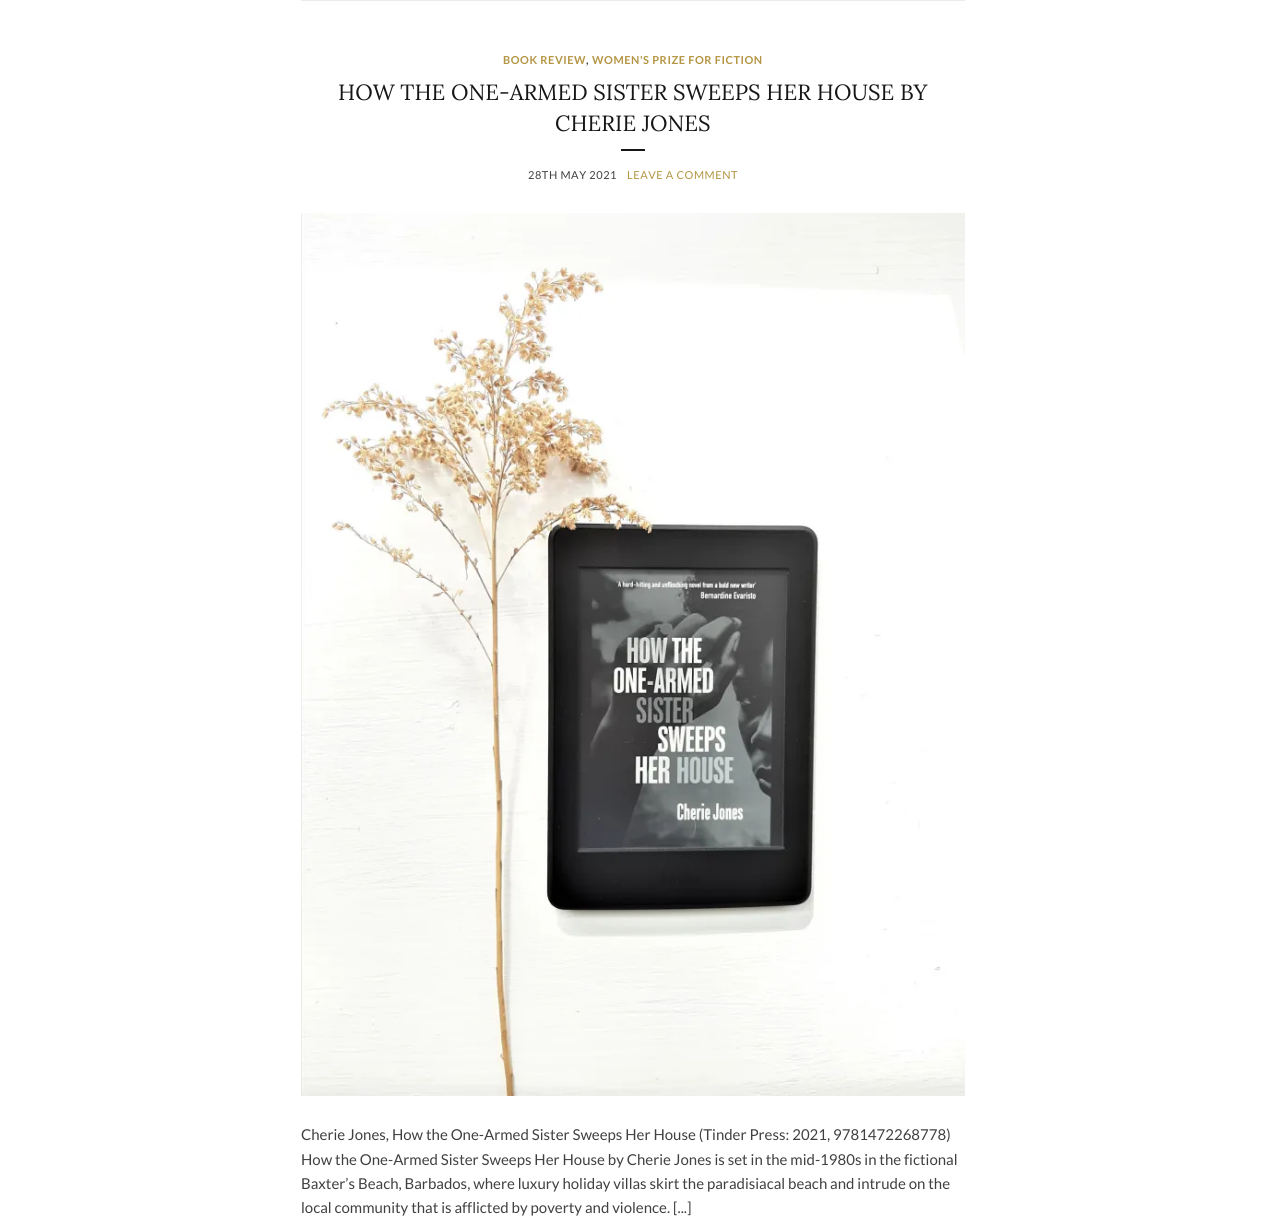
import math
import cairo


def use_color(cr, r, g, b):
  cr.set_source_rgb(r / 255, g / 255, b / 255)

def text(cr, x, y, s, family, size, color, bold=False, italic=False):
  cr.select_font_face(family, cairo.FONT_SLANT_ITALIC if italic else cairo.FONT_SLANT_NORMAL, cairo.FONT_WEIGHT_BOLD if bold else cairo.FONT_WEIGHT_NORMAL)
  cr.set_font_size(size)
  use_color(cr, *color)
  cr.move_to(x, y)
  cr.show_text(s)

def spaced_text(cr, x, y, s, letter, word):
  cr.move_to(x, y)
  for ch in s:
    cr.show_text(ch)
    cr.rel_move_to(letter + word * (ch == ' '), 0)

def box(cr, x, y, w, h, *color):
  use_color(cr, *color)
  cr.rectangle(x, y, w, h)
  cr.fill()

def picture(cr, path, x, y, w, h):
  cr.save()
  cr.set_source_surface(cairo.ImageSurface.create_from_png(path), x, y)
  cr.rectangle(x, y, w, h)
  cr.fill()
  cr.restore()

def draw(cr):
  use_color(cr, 255, 255, 255)
  cr.paint()
  cr.rectangle(301.5, -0.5, 663, 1)
  use_color(cr, 235, 235, 235)
  cr.set_line_width(1)
  cr.stroke()
  box(cr, 621, 149, 24, 2, 22, 22, 22)
  picture(cr, "img_01.png", 301, 213, 664, 883)
  cr.select_font_face("Lato", cairo.FONT_SLANT_NORMAL, cairo.FONT_WEIGHT_BOLD)
  cr.set_font_size(11)
  use_color(cr, 180, 149, 67)
  spaced_text(cr, 503, 64, "BOOK REVIEW", 0.55, 0)
  use_color(cr, 64, 64, 64)
  spaced_text(cr, 586, 64, ",", 0.55, 0)
  use_color(cr, 180, 149, 67)
  spaced_text(cr, 592, 64, "WOMEN'S PRIZE FOR FICTION", 0.55, 0)
  text(cr, 338, 100, "HOW THE ONE-ARMED SISTER SWEEPS HER HOUSE BY", "Lora", 22, (22, 22, 22))
  text(cr, 555, 131, "CHERIE JONES", "Lora", 22, (22, 22, 22))
  cr.select_font_face("Lato")
  cr.set_font_size(11)
  use_color(cr, 64, 64, 64)
  spaced_text(cr, 528, 179, "28TH MAY 2021", 0.55, 0)
  use_color(cr, 180, 149, 67)
  spaced_text(cr, 627, 179, "LEAVE A COMMENT", 0.55, 0)
  text(cr, 301, 1140, "Cherie Jones, How the One-Armed Sister Sweeps Her House (Tinder Press: 2021, 9781472268778)", "Lato", 15, (64, 64, 64))
  text(cr, 301, 1165, "How the One-Armed Sister Sweeps Her House by Cherie Jones is set in the mid-1980s in the fictional", "Lato", 15, (64, 64, 64))
  text(cr, 301, 1189, "Baxter’s Beach, Barbados, where luxury holiday villas skirt the paradisiacal beach and intrude on the", "Lato", 15, (64, 64, 64))
  text(cr, 301, 1213, "local community that is afflicted by poverty and violence. [...]", "Lato", 15, (64, 64, 64))


surface = cairo.ImageSurface(cairo.FORMAT_RGB24, 1266, 1221)
cr = cairo.Context(surface)
options = cairo.FontOptions()
options.set_hint_metrics(cairo.HINT_METRICS_OFF)
options.set_hint_style(cairo.HINT_STYLE_NONE)
cr.set_font_options(options)
cr.set_miter_limit(4)
draw(cr)
surface.write_to_png("out.png")
